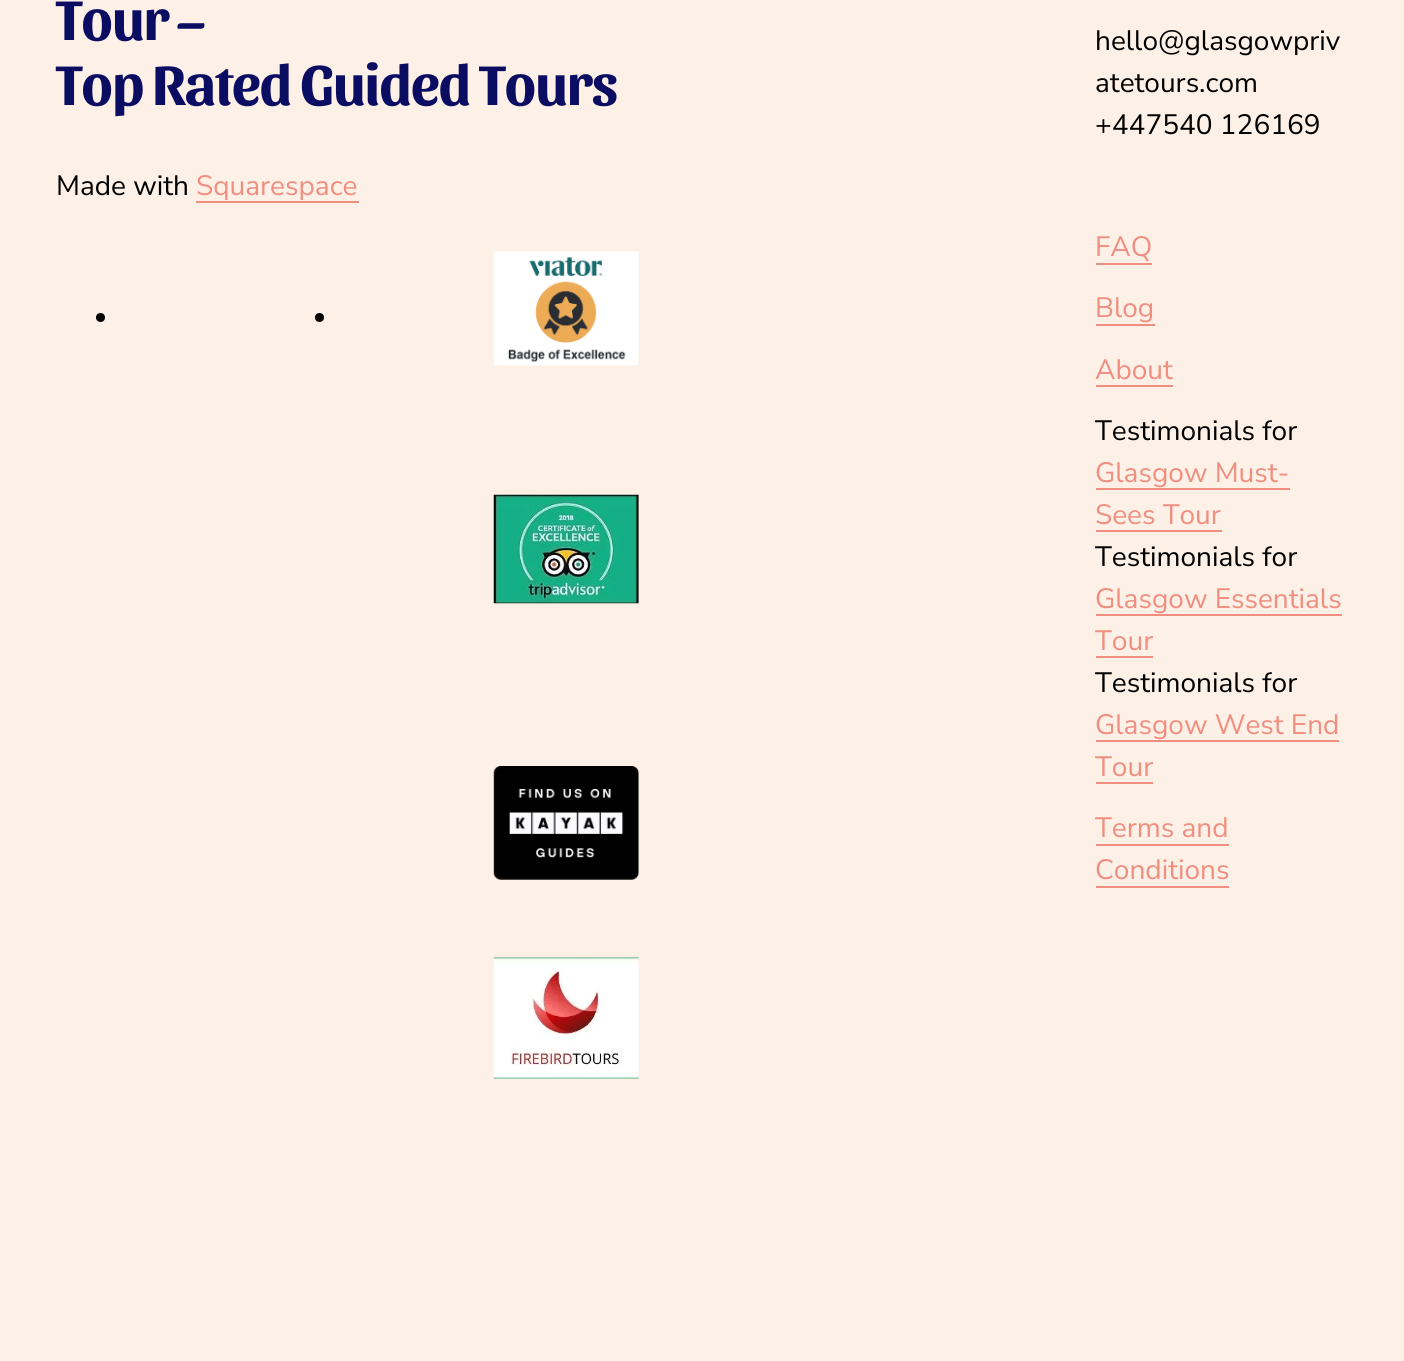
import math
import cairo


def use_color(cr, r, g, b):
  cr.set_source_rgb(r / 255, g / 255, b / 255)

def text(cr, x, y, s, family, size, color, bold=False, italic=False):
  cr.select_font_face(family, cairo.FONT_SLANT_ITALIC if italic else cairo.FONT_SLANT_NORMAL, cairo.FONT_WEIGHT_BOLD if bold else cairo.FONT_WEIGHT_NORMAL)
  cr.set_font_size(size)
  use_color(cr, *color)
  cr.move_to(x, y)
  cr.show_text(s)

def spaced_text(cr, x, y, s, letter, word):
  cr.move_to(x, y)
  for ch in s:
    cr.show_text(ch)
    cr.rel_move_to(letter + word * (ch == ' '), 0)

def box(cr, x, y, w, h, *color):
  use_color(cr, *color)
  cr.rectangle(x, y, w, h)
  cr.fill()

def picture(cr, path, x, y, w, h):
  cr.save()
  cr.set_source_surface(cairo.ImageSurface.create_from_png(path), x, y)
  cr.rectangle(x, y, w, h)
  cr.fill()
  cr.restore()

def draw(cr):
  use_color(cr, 253, 240, 230)
  cr.paint()
  box(cr, 196, 201, 163, 2, 240, 142, 128)
  picture(cr, "img_01.png", 493, 251, 146, 115)
  box(cr, 1096, 263, 56, 2, 240, 142, 128)
  use_color(cr, 0, 0, 0)
  cr.arc(100.5, 317.5, 4.5, 0, 2 * math.pi)
  cr.fill()
  cr.arc(319.5, 317.5, 4.5, 0, 2 * math.pi)
  cr.fill()
  box(cr, 1096, 324, 59, 2, 240, 142, 128)
  box(cr, 1096, 385, 77, 2, 240, 142, 128)
  picture(cr, "img_02.png", 493, 494, 146, 110)
  box(cr, 1096, 488, 194, 2, 240, 142, 128)
  box(cr, 1096, 530, 126, 2, 240, 142, 128)
  box(cr, 1096, 614, 246, 2, 240, 142, 128)
  box(cr, 1096, 656, 57, 2, 240, 142, 128)
  box(cr, 1096, 740, 243, 2, 240, 142, 128)
  box(cr, 1096, 782, 57, 2, 240, 142, 128)
  picture(cr, "img_03.png", 493, 766, 146, 114)
  box(cr, 1096, 844, 133, 2, 240, 142, 128)
  box(cr, 1096, 886, 133, 2, 240, 142, 128)
  picture(cr, "img_04.png", 493, 956, 146, 124)
  cr.select_font_face("Sansita", cairo.FONT_SLANT_NORMAL, cairo.FONT_WEIGHT_BOLD)
  cr.set_font_size(58.25)
  use_color(cr, 11, 13, 99)
  spaced_text(cr, 56, 40, "Tour –", -1.2, 0)
  spaced_text(cr, 56, 105, "Top Rated Guided Tours", -1.2, 0)
  text(cr, 1095, 50, "hello@glasgowpriv", "Nunito Sans", 28, (0, 0, 0))
  text(cr, 1095, 92, "atetours.com", "Nunito Sans", 28, (0, 0, 0))
  text(cr, 1095, 134, "+447540 126169", "Nunito Sans", 28, (0, 0, 0))
  text(cr, 56, 195, "Made with", "Nunito Sans", 28, (0, 0, 0))
  text(cr, 196, 195, "Squarespace", "Nunito Sans", 28, (240, 142, 128))
  text(cr, 1095, 256, "FAQ", "Nunito Sans", 28, (240, 142, 128))
  text(cr, 1095, 317, "Blog", "Nunito Sans", 28, (240, 142, 128))
  text(cr, 1095, 379, "About", "Nunito Sans", 28, (240, 142, 128))
  text(cr, 1095, 440, "Testimonials for", "Nunito Sans", 28, (0, 0, 0))
  text(cr, 1095, 482, "Glasgow Must-", "Nunito Sans", 28, (240, 142, 128))
  text(cr, 1095, 524, "Sees Tour", "Nunito Sans", 28, (240, 142, 128))
  text(cr, 1095, 566, "Testimonials for", "Nunito Sans", 28, (0, 0, 0))
  text(cr, 1095, 608, "Glasgow Essentials", "Nunito Sans", 28, (240, 142, 128))
  text(cr, 1095, 650, "Tour", "Nunito Sans", 28, (240, 142, 128))
  text(cr, 1095, 692, "Testimonials for", "Nunito Sans", 28, (0, 0, 0))
  text(cr, 1095, 734, "Glasgow West End", "Nunito Sans", 28, (240, 142, 128))
  text(cr, 1095, 776, "Tour", "Nunito Sans", 28, (240, 142, 128))
  text(cr, 1095, 837, "Terms and", "Nunito Sans", 28, (240, 142, 128))
  text(cr, 1095, 879, "Conditions", "Nunito Sans", 28, (240, 142, 128))


surface = cairo.ImageSurface(cairo.FORMAT_RGB24, 1404, 1361)
cr = cairo.Context(surface)
options = cairo.FontOptions()
options.set_hint_metrics(cairo.HINT_METRICS_OFF)
options.set_hint_style(cairo.HINT_STYLE_NONE)
cr.set_font_options(options)
cr.set_miter_limit(4)
draw(cr)
surface.write_to_png("out.png")
